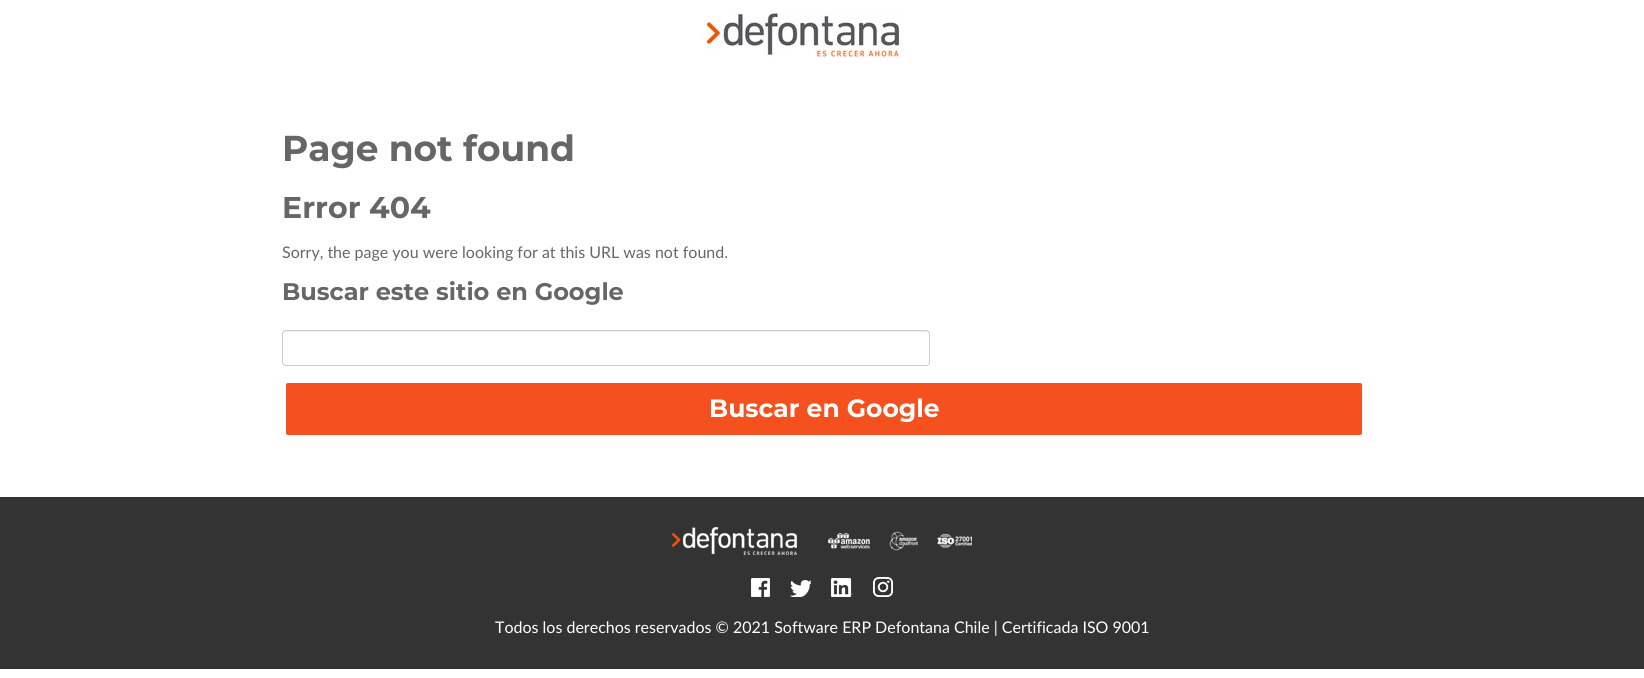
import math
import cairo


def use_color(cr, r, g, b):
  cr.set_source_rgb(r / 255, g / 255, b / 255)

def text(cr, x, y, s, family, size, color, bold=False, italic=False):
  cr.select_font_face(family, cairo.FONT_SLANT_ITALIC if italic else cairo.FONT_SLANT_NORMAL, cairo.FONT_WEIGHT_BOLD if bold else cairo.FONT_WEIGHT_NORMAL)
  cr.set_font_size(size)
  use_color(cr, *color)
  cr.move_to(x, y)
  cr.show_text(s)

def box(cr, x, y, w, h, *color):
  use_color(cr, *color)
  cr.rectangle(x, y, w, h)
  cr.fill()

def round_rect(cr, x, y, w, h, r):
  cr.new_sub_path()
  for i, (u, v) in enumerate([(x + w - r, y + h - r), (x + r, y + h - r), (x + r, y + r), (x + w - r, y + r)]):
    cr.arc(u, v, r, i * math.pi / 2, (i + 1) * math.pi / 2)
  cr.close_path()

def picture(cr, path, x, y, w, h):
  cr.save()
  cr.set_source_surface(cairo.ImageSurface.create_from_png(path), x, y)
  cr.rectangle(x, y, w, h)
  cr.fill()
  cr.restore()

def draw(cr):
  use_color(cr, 255, 255, 255)
  cr.paint()
  picture(cr, "img_01.png", 703, 11, 200, 48)
  use_color(cr, 236, 236, 236)
  cr.new_path()
  cr.move_to(286, 332)
  cr.line_to(926, 332)
  cr.curve_to(928, 332, 929, 333, 929, 335)
  cr.line_to(929, 334)
  cr.curve_to(929, 332, 928, 331, 926, 331)
  cr.line_to(286, 331)
  cr.curve_to(284, 331, 283, 332, 283, 334)
  cr.line_to(283, 335)
  cr.curve_to(283, 333, 284, 332, 286, 332)
  cr.close_path()
  cr.fill()
  round_rect(cr, 282.5, 330.5, 647, 35, 3.5)
  use_color(cr, 204, 204, 204)
  cr.set_line_width(1)
  cr.stroke()
  use_color(cr, 244, 81, 30)
  round_rect(cr, 285, 382, 1078, 54, 3)
  cr.fill_preserve()
  use_color(cr, 255, 255, 255)
  cr.set_line_width(2)
  cr.stroke()
  box(cr, 0, 497, 1644, 172, 51, 51, 51)
  picture(cr, "img_02.png", 672, 527, 300, 28)
  picture(cr, "img_03.png", 751, 578, 19, 19)
  picture(cr, "img_04.png", 790, 580, 21, 17)
  picture(cr, "img_05.png", 831, 578, 22, 19)
  picture(cr, "img_06.png", 873, 577, 20, 20)
  text(cr, 282, 161, "Page not found", "Montserrat", 36, (102, 102, 102), bold=True)
  text(cr, 282, 218, "Error 404", "Montserrat", 30, (102, 102, 102), bold=True)
  text(cr, 282, 258, "Sorry, the page you were looking for at this URL was not found.", "Lato", 16, (102, 102, 102))
  text(cr, 282, 300, "Buscar este sitio en Google", "Montserrat", 24, (102, 102, 102), bold=True)
  text(cr, 709, 417, "Buscar en Google", "Montserrat", 25, (255, 255, 255), bold=True)
  text(cr, 495, 633, "Todos los derechos reservados © 2021 Software ERP Defontana Chile | Certificada ISO 9001", "Lato", 16, (255, 255, 255))


surface = cairo.ImageSurface(cairo.FORMAT_RGB24, 1644, 678)
cr = cairo.Context(surface)
options = cairo.FontOptions()
options.set_hint_metrics(cairo.HINT_METRICS_OFF)
options.set_hint_style(cairo.HINT_STYLE_NONE)
cr.set_font_options(options)
cr.set_miter_limit(4)
draw(cr)
surface.write_to_png("out.png")
